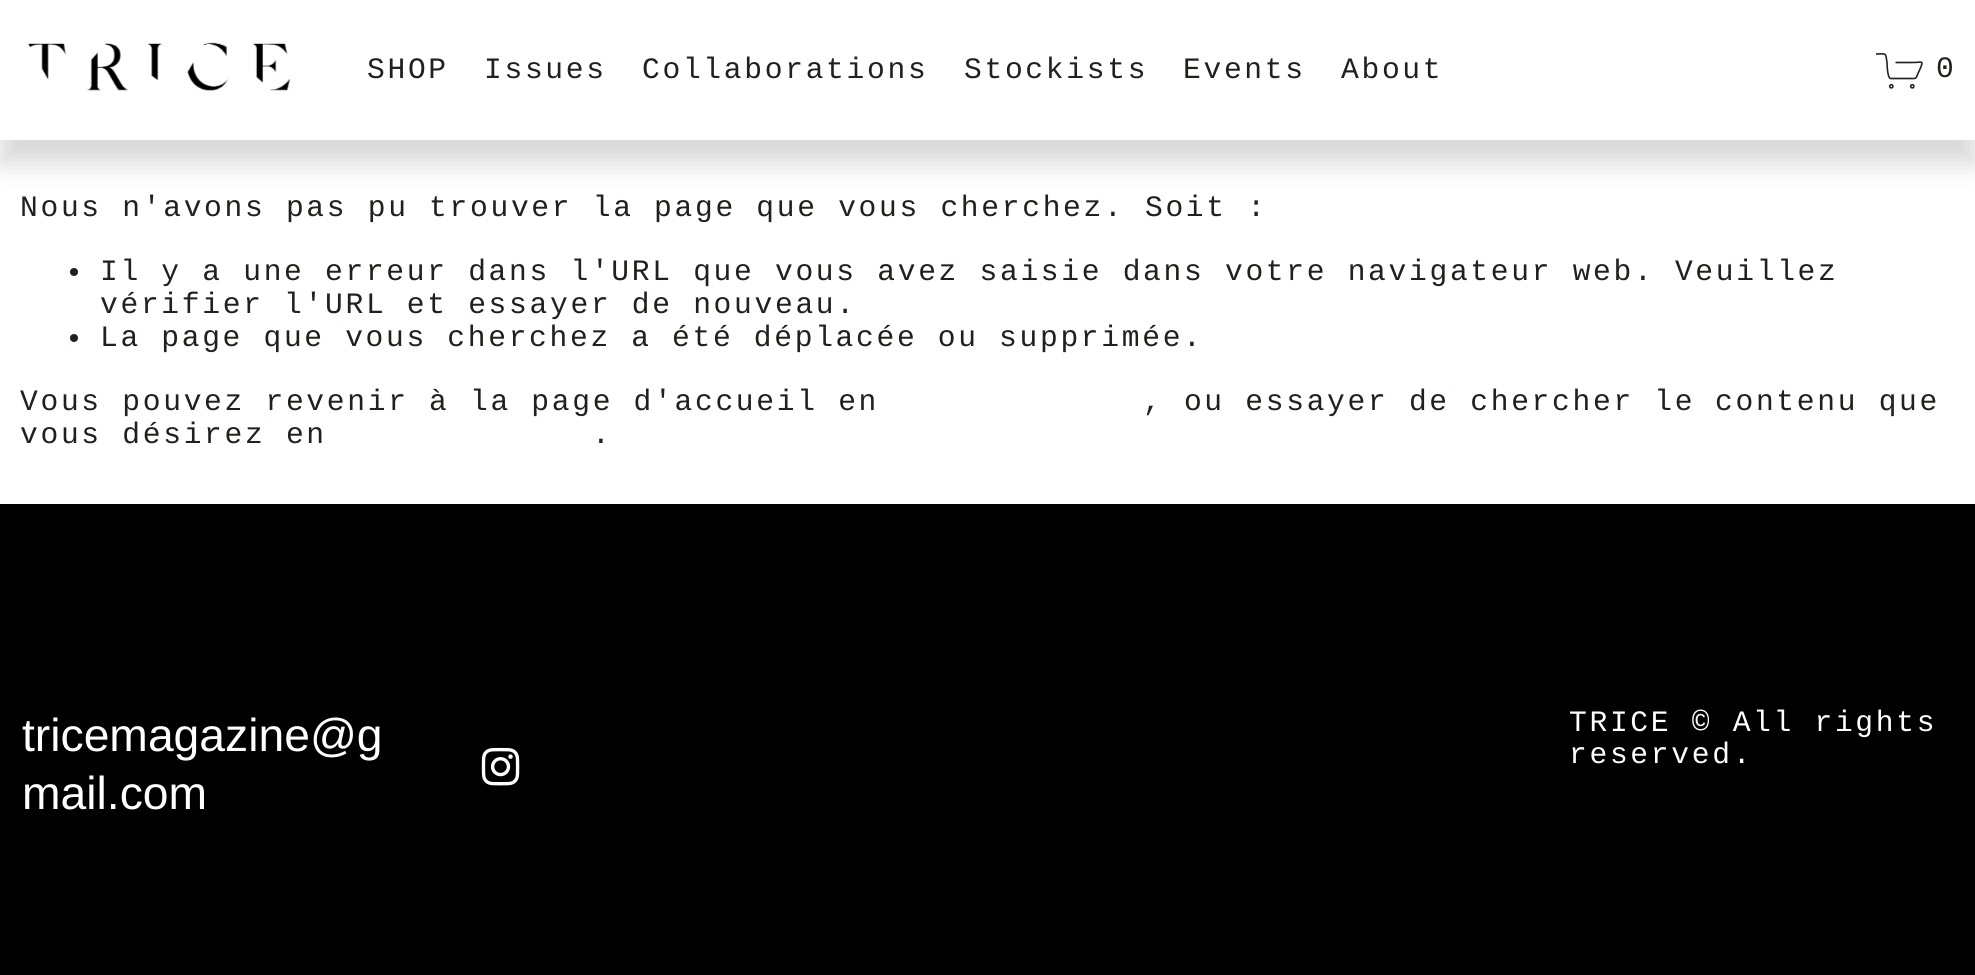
import math
import cairo


def use_color(cr, r, g, b):
  cr.set_source_rgb(r / 255, g / 255, b / 255)

def text(cr, x, y, s, family, size, color, bold=False, italic=False):
  cr.select_font_face(family, cairo.FONT_SLANT_ITALIC if italic else cairo.FONT_SLANT_NORMAL, cairo.FONT_WEIGHT_BOLD if bold else cairo.FONT_WEIGHT_NORMAL)
  cr.set_font_size(size)
  use_color(cr, *color)
  cr.move_to(x, y)
  cr.show_text(s)

def spaced_text(cr, x, y, s, letter, word):
  cr.move_to(x, y)
  for ch in s:
    cr.show_text(ch)
    cr.rel_move_to(letter + word * (ch == ' '), 0)

def box(cr, x, y, w, h, *color):
  use_color(cr, *color)
  cr.rectangle(x, y, w, h)
  cr.fill()

def round_rect(cr, x, y, w, h, r):
  cr.new_sub_path()
  for i, (u, v) in enumerate([(x + w - r, y + h - r), (x + r, y + h - r), (x + r, y + r), (x + w - r, y + r)]):
    cr.arc(u, v, r, i * math.pi / 2, (i + 1) * math.pi / 2)
  cr.close_path()

def shadow(cr, x, y, w, h, r, blur, alpha):
  cr.push_group_with_content(cairo.CONTENT_ALPHA)
  cr.set_operator(cairo.OPERATOR_SOURCE)
  for i in range(15, -16, -2):
    e = blur * i / 6
    if min(w, h) + 2 * e > 0:
      cr.set_source_rgba(0, 0, 0, alpha * math.erfc((i - 1) / 8.5) / 2)
      round_rect(cr, x - e, y - e, w + 2 * e, h + 2 * e, max(0, min(r + e + blur * .6, min(w, h) / 2 + e)))
      cr.fill()
  cr.mask(cr.pop_group())

def picture(cr, path, x, y, w, h):
  cr.save()
  cr.set_source_surface(cairo.ImageSurface.create_from_png(path), x, y)
  cr.rectangle(x, y, w, h)
  cr.fill()
  cr.restore()

def draw(cr):
  use_color(cr, 255, 255, 255)
  cr.paint()
  cr.save()
  cr.rectangle(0, 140, 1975, 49)
  cr.clip()
  use_color(cr, 217, 217, 217)
  shadow(cr, 0, 24, 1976, 140, 0, 12, 1)
  cr.restore()
  picture(cr, "img_01.png", 28, 42, 263, 49)
  cr.arc(1912.3, 86.3, 1.6, 0, 2 * math.pi)
  use_color(cr, 29, 35, 28)
  cr.set_line_width(1.6)
  cr.stroke()
  cr.arc(1891.3, 86.3, 1.6, 0, 2 * math.pi)
  cr.stroke()
  cr.new_path()
  cr.move_to(1876, 54)
  cr.curve_to(1886.5, 54, 1885.5, 52, 1887, 62.5)
  cr.curve_to(1887, 65, 1887.5, 78, 1890.5, 78.5)
  cr.line_to(1910.5, 78.5)
  cr.curve_to(1915.5, 78.5, 1916, 79, 1917.5, 74.5)
  cr.line_to(1920.5, 68)
  cr.curve_to(1923.5, 60, 1922.5, 62.5, 1912.5, 62.5)
  cr.line_to(1895.5, 62.5)
  cr.stroke()
  cr.arc(74, 272, 4, 0, 2 * math.pi)
  cr.fill()
  cr.arc(74, 338, 4, 0, 2 * math.pi)
  cr.fill()
  box(cr, 0, 504, 1975, 471, 0, 0, 0)
  picture(cr, "img_02.png", 481, 747, 39, 39)
  cr.select_font_face("Liberation Mono")
  cr.set_font_size(29.63)
  use_color(cr, 29, 35, 28)
  spaced_text(cr, 367, 78, "SHOP", 2.67, 0)
  spaced_text(cr, 484, 78, "Issues", 2.67, 0)
  spaced_text(cr, 642, 78, "Collaborations", 2.67, 0)
  spaced_text(cr, 964, 78, "Stockists", 2.67, 0)
  spaced_text(cr, 1183, 78, "Events", 2.67, 0)
  spaced_text(cr, 1341, 78, "About", 2.67, 0)
  spaced_text(cr, 1936, 77, "0", 2.67, 0)
  spaced_text(cr, 20, 216, "Nous n'avons pas pu trouver la page que vous cherchez. Soit :", 2.67, 0)
  spaced_text(cr, 100, 280, "Il y a une erreur dans l'URL que vous avez saisie dans votre navigateur web. Veuillez", 2.67, 0)
  spaced_text(cr, 100, 313, "vérifier l'URL et essayer de nouveau.", 2.67, 0)
  spaced_text(cr, 100, 346, "La page que vous cherchez a été déplacée ou supprimée.", 2.67, -0.1)
  spaced_text(cr, 20, 410, "Vous pouvez revenir à la page d'accueil en", 2.67, 0)
  spaced_text(cr, 1143, 410, ", ou essayer de chercher le", 2.67, 0)
  spaced_text(cr, 1715, 410, "contenu que", 2.67, 0)
  spaced_text(cr, 20, 443, "vous désirez en", 2.67, 0)
  spaced_text(cr, 592, 443, ".", 2.67, 0)
  text(cr, 22, 751, "tricemagazine@g", "Liberation Sans", 46.25, (255, 255, 255))
  text(cr, 22, 809, "mail.com", "Liberation Sans", 46.25, (255, 255, 255))
  cr.select_font_face("Liberation Mono")
  cr.set_font_size(29.63)
  spaced_text(cr, 1569, 731, "TRICE © All rights", 2.67, 0)
  spaced_text(cr, 1569, 763, "reserved.", 2.67, 0)


surface = cairo.ImageSurface(cairo.FORMAT_RGB24, 1975, 975)
cr = cairo.Context(surface)
options = cairo.FontOptions()
options.set_hint_metrics(cairo.HINT_METRICS_OFF)
options.set_hint_style(cairo.HINT_STYLE_NONE)
cr.set_font_options(options)
cr.set_miter_limit(4)
draw(cr)
surface.write_to_png("out.png")
